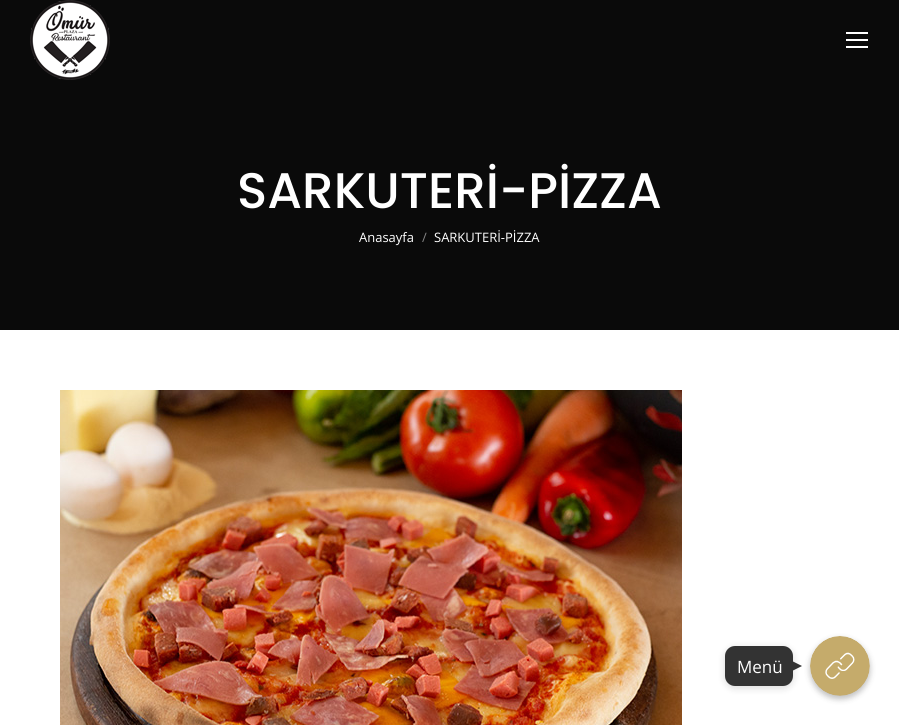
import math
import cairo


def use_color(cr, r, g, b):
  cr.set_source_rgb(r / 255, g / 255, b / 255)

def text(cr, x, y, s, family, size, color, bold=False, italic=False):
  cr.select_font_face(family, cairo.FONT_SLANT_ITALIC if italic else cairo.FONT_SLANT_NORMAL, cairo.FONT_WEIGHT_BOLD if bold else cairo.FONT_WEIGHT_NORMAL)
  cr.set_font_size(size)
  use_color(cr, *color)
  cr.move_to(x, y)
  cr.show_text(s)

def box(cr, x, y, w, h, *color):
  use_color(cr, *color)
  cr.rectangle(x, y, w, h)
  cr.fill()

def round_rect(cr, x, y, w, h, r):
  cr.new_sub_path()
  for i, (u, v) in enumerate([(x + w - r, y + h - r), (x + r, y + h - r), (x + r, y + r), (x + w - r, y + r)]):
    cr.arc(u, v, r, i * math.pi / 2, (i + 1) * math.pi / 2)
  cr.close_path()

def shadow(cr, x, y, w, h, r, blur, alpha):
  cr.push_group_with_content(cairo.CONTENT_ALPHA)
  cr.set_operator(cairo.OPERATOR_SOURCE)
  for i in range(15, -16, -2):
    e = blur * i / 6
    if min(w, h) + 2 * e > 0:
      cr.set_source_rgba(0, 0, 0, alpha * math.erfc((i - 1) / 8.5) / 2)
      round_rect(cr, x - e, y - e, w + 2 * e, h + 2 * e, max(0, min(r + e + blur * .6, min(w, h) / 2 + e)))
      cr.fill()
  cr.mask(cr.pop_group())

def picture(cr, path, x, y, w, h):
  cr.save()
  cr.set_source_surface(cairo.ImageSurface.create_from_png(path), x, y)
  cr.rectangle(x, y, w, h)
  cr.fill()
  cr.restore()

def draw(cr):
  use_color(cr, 255, 255, 255)
  cr.paint()
  box(cr, 0, 0, 899, 330, 10, 10, 10)
  picture(cr, "img_01.png", 30, 0, 80, 80)
  box(cr, 846, 32, 22, 2, 255, 255, 255)
  box(cr, 846, 39, 22, 2, 255, 255, 255)
  box(cr, 846, 46, 22, 2, 255, 255, 255)
  picture(cr, "img_02.png", 60, 390, 622, 335)
  use_color(cr, 0, 0, 0)
  shadow(cr, 725, 648, 68, 40, 10, 4, 0.15)
  use_color(cr, 51, 51, 51)
  round_rect(cr, 725, 646, 68, 40, 10)
  cr.fill()
  use_color(cr, 0, 0, 0)
  shadow(cr, 810, 639, 60, 60, 30, 3, 0.25)
  use_color(cr, 51, 51, 51)
  cr.new_path()
  cr.move_to(792, 671)
  cr.line_to(792, 661)
  cr.line_to(802, 666)
  cr.close_path()
  cr.fill()
  picture(cr, "img_03.png", 810, 636, 60, 60)
  text(cr, 237, 208, "SARKUTERİ-PİZZA", "Poppins Medium", 50, (255, 255, 255))
  text(cr, 359, 242, "Anasayfa", "Open Sans", 13, (255, 255, 255))
  text(cr, 422, 242, "/", "Open Sans", 13, (133, 133, 133))
  text(cr, 434, 242, "SARKUTERİ-PİZZA", "Open Sans", 13, (255, 255, 255))
  text(cr, 737, 673, "Menü", "Open Sans", 17, (255, 255, 255))


surface = cairo.ImageSurface(cairo.FORMAT_RGB24, 899, 725)
cr = cairo.Context(surface)
options = cairo.FontOptions()
options.set_hint_metrics(cairo.HINT_METRICS_OFF)
options.set_hint_style(cairo.HINT_STYLE_NONE)
cr.set_font_options(options)
cr.set_miter_limit(4)
draw(cr)
surface.write_to_png("out.png")
